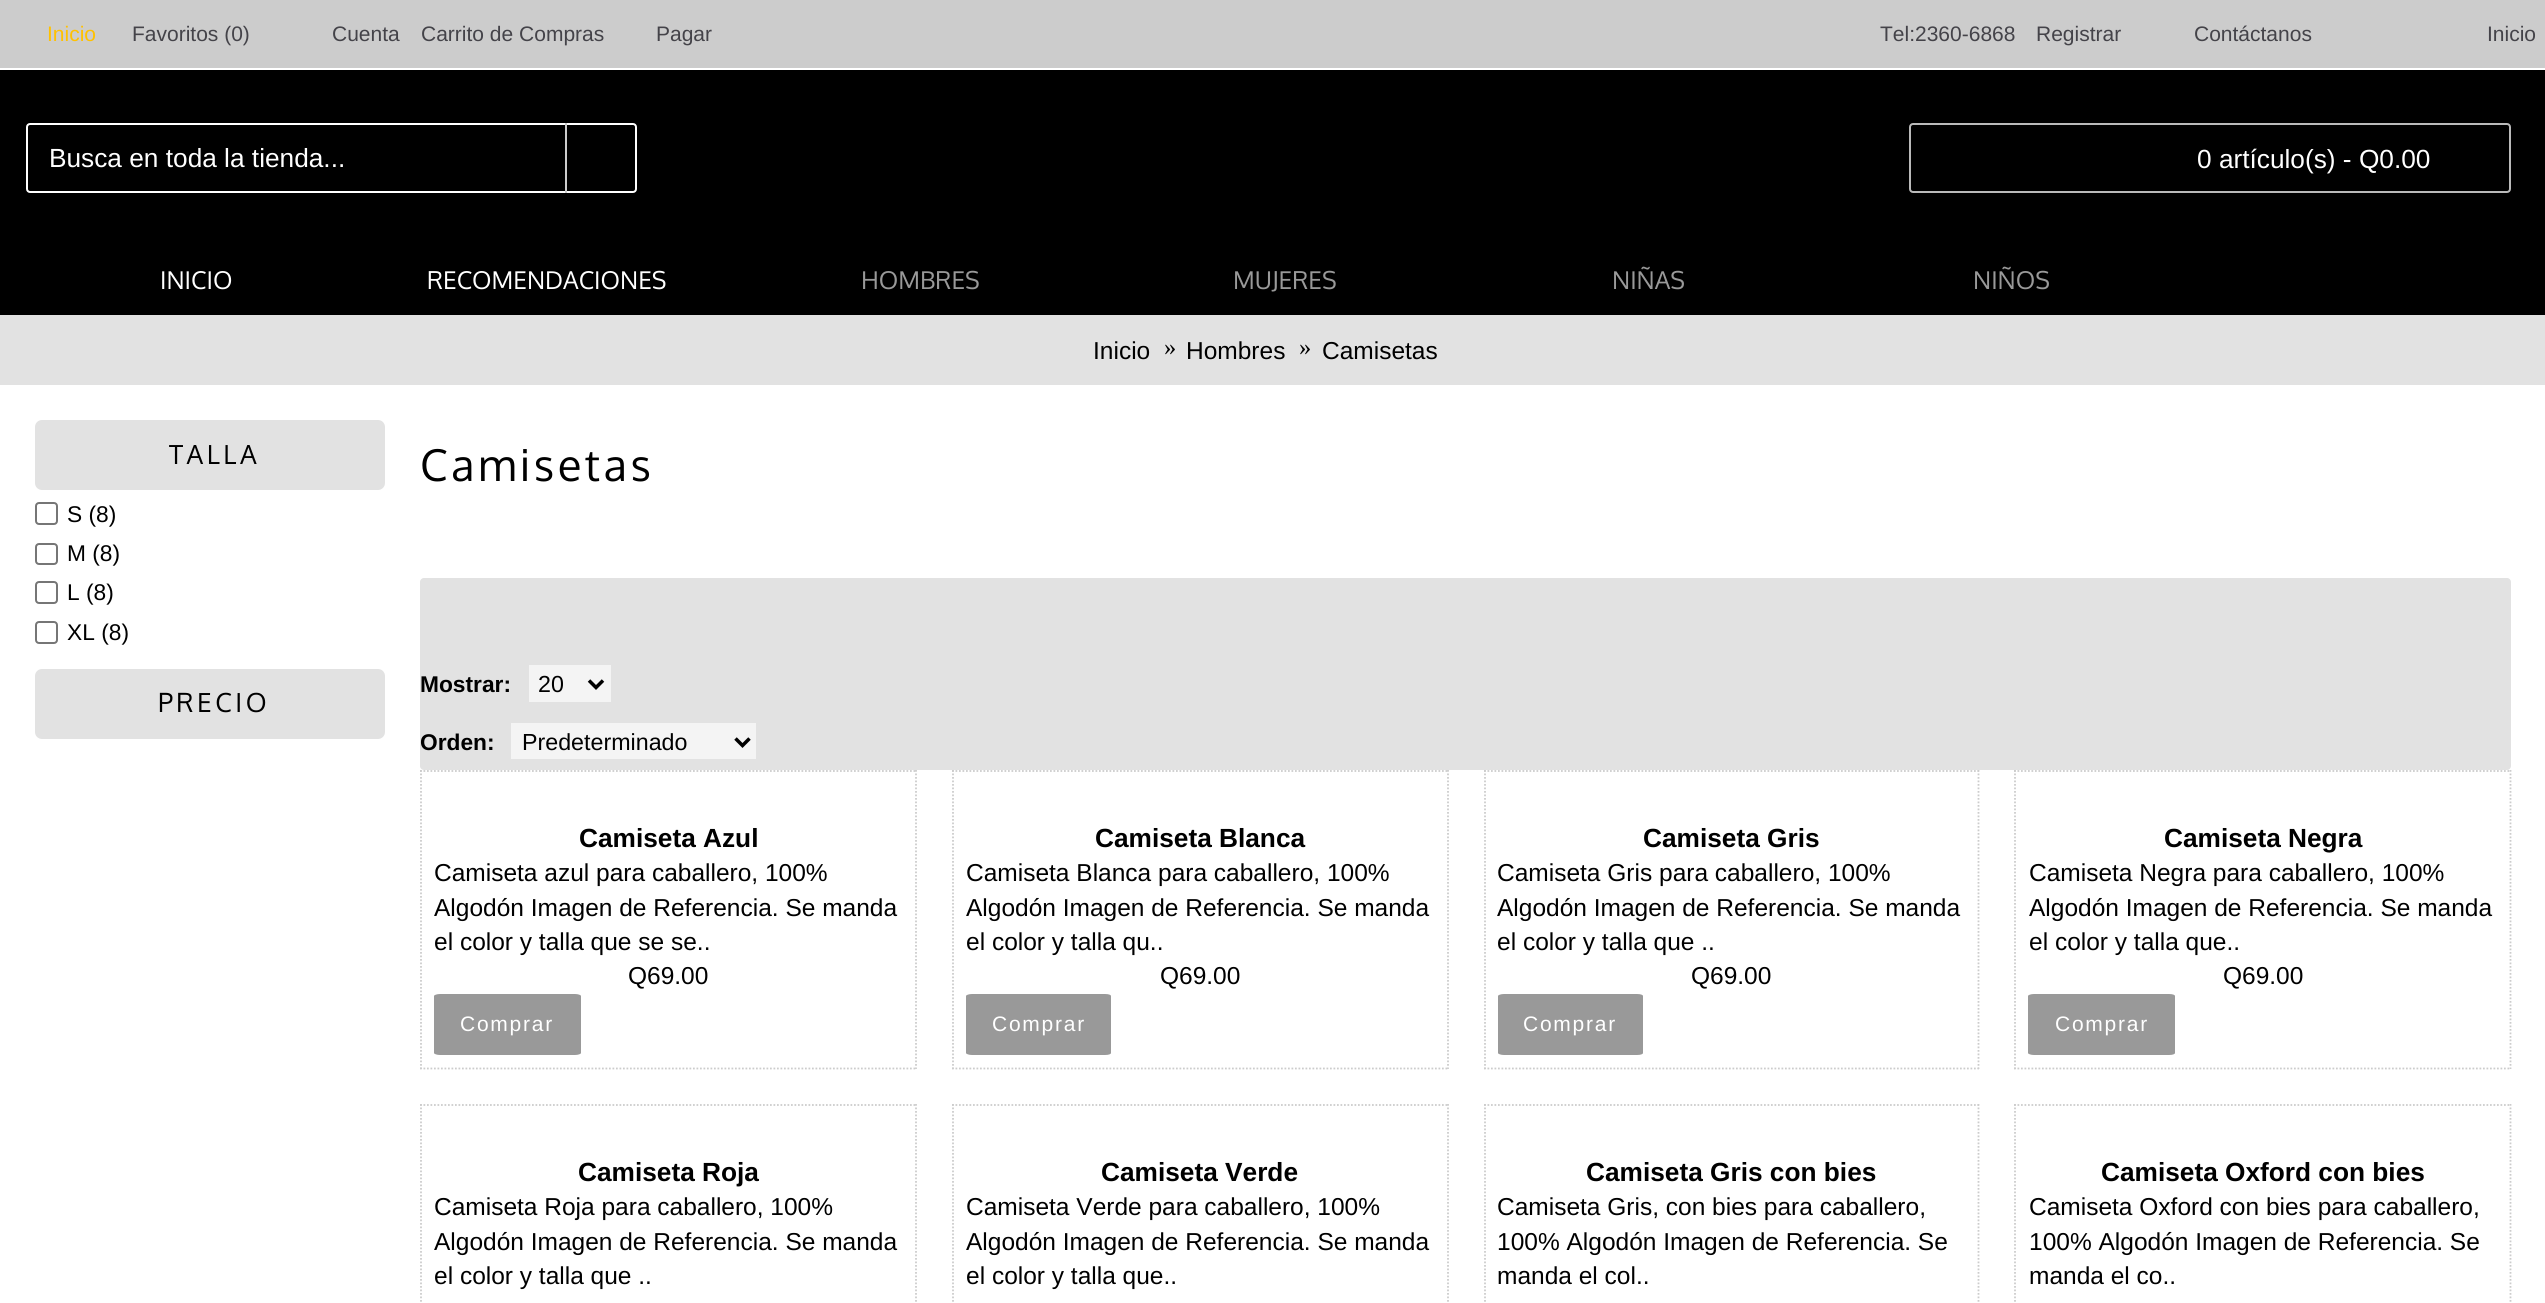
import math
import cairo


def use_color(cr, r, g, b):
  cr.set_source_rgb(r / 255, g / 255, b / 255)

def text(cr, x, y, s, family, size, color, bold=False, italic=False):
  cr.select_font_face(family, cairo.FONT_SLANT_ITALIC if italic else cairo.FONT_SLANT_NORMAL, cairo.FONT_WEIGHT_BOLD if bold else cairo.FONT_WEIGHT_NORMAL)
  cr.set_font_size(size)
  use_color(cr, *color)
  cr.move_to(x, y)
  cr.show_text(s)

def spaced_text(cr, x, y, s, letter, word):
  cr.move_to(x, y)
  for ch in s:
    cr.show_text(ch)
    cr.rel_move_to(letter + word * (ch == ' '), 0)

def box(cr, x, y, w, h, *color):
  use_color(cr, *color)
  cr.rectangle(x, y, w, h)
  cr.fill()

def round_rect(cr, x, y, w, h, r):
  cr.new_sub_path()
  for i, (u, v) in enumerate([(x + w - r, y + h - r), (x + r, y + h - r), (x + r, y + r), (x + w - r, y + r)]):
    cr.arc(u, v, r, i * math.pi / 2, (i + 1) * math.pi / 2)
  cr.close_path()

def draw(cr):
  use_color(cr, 255, 255, 255)
  cr.paint()
  box(cr, 0, 70, 2545, 245, 0, 0, 0)
  box(cr, 0, 0, 2545, 68, 204, 204, 204)
  round_rect(cr, 27, 124, 609, 68, 3)
  use_color(cr, 255, 255, 255)
  cr.stroke()
  box(cr, 565, 123, 2, 70, 204, 204, 204)
  round_rect(cr, 1910, 124, 600, 68, 3)
  use_color(cr, 186, 186, 186)
  cr.stroke()
  box(cr, 0, 315, 2545, 70, 226, 226, 226)
  round_rect(cr, 35, 420, 350, 70, 7)
  cr.fill()
  round_rect(cr, 36, 503, 21, 21, 3)
  use_color(cr, 118, 118, 118)
  cr.stroke()
  round_rect(cr, 36, 544, 21, 20, 3)
  cr.stroke()
  round_rect(cr, 36, 582, 21, 21, 3)
  cr.stroke()
  round_rect(cr, 36, 622, 21, 21, 3)
  cr.stroke()
  use_color(cr, 226, 226, 226)
  round_rect(cr, 35, 669, 350, 70, 7)
  cr.fill()
  round_rect(cr, 420, 578, 2091, 192, 4)
  cr.fill()
  box(cr, 529, 665, 82, 37, 244, 244, 244)
  cr.new_path()
  cr.move_to(589, 680.5)
  cr.line_to(596, 687.5)
  cr.line_to(603, 680.5)
  use_color(cr, 0, 0, 0)
  cr.set_line_width(3.5)
  cr.stroke()
  box(cr, 511, 723, 245, 36, 244, 244, 244)
  cr.new_path()
  cr.move_to(735.5, 738.5)
  cr.line_to(742.5, 745.5)
  cr.line_to(749.5, 738.5)
  use_color(cr, 0, 0, 0)
  cr.stroke()
  cr.new_path()
  cr.move_to(420, 771)
  cr.line_to(917, 771)
  use_color(cr, 204, 204, 204)
  cr.set_line_width(1.8)
  cr.set_dash([1.75, 1.75])
  cr.stroke()
  cr.new_path()
  cr.move_to(916, 770)
  cr.line_to(916, 1069)
  cr.stroke()
  cr.new_path()
  cr.move_to(420, 1068.5)
  cr.line_to(917, 1068.5)
  cr.stroke()
  cr.new_path()
  cr.move_to(421, 770)
  cr.line_to(421, 1069)
  cr.stroke()
  use_color(cr, 153, 153, 153)
  cr.new_path()
  cr.move_to(440, 994)
  cr.line_to(575, 994)
  cr.curve_to(578, 994, 581, 995, 581, 996)
  cr.line_to(581, 1053)
  cr.curve_to(581, 1054, 578, 1055, 575, 1055)
  cr.line_to(440, 1055)
  cr.curve_to(437, 1055, 434, 1054, 434, 1053)
  cr.line_to(434, 996)
  cr.curve_to(434, 995, 437, 994, 440, 994)
  cr.close_path()
  cr.fill()
  cr.new_path()
  cr.move_to(952, 771)
  cr.line_to(1449, 771)
  use_color(cr, 204, 204, 204)
  cr.stroke()
  cr.new_path()
  cr.move_to(1448, 770)
  cr.line_to(1448, 1069)
  cr.stroke()
  cr.new_path()
  cr.move_to(952, 1068.5)
  cr.line_to(1449, 1068.5)
  cr.stroke()
  cr.new_path()
  cr.move_to(953, 770)
  cr.line_to(953, 1069)
  cr.stroke()
  use_color(cr, 153, 153, 153)
  cr.new_path()
  cr.move_to(972, 994)
  cr.line_to(1105, 994)
  cr.curve_to(1109, 994, 1111, 995, 1111, 996)
  cr.line_to(1111, 1053)
  cr.curve_to(1111, 1054, 1109, 1055, 1105, 1055)
  cr.line_to(972, 1055)
  cr.curve_to(969, 1055, 966, 1054, 966, 1053)
  cr.line_to(966, 996)
  cr.curve_to(966, 995, 969, 994, 972, 994)
  cr.close_path()
  cr.fill()
  cr.new_path()
  cr.move_to(1484, 771)
  cr.line_to(1979, 771)
  use_color(cr, 204, 204, 204)
  cr.stroke()
  cr.new_path()
  cr.move_to(1978.5, 770)
  cr.line_to(1978.5, 1069)
  cr.stroke()
  cr.new_path()
  cr.move_to(1484, 1068.5)
  cr.line_to(1979, 1068.5)
  cr.stroke()
  cr.new_path()
  cr.move_to(1485, 770)
  cr.line_to(1485, 1069)
  cr.stroke()
  use_color(cr, 153, 153, 153)
  cr.new_path()
  cr.move_to(1504, 994)
  cr.line_to(1637, 994)
  cr.curve_to(1641, 994, 1643, 995, 1643, 996)
  cr.line_to(1643, 1053)
  cr.curve_to(1643, 1054, 1641, 1055, 1637, 1055)
  cr.line_to(1504, 1055)
  cr.curve_to(1501, 1055, 1498, 1054, 1498, 1053)
  cr.line_to(1498, 996)
  cr.curve_to(1498, 995, 1501, 994, 1504, 994)
  cr.close_path()
  cr.fill()
  cr.new_path()
  cr.move_to(2014, 771)
  cr.line_to(2511, 771)
  use_color(cr, 204, 204, 204)
  cr.stroke()
  cr.new_path()
  cr.move_to(2510.5, 770)
  cr.line_to(2510.5, 1069)
  cr.stroke()
  cr.new_path()
  cr.move_to(2014, 1068.5)
  cr.line_to(2511, 1068.5)
  cr.stroke()
  cr.new_path()
  cr.move_to(2015, 770)
  cr.line_to(2015, 1069)
  cr.stroke()
  use_color(cr, 153, 153, 153)
  cr.new_path()
  cr.move_to(2034, 994)
  cr.line_to(2169, 994)
  cr.curve_to(2173, 994, 2175, 995, 2175, 996)
  cr.line_to(2175, 1053)
  cr.curve_to(2175, 1054, 2173, 1055, 2169, 1055)
  cr.line_to(2034, 1055)
  cr.curve_to(2031, 1055, 2028, 1054, 2028, 1053)
  cr.line_to(2028, 996)
  cr.curve_to(2028, 995, 2031, 994, 2034, 994)
  cr.close_path()
  cr.fill()
  cr.new_path()
  cr.move_to(420, 1105)
  cr.line_to(917, 1105)
  use_color(cr, 204, 204, 204)
  cr.stroke()
  cr.new_path()
  cr.move_to(916, 1104)
  cr.line_to(916, 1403.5)
  cr.stroke()
  cr.new_path()
  cr.move_to(421, 1104)
  cr.line_to(421, 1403.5)
  cr.stroke()
  cr.new_path()
  cr.move_to(952, 1105)
  cr.line_to(1449, 1105)
  cr.stroke()
  cr.new_path()
  cr.move_to(1448, 1104)
  cr.line_to(1448, 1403.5)
  cr.stroke()
  cr.new_path()
  cr.move_to(953, 1104)
  cr.line_to(953, 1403.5)
  cr.stroke()
  cr.new_path()
  cr.move_to(1484, 1105)
  cr.line_to(1979, 1105)
  cr.stroke()
  cr.new_path()
  cr.move_to(1978.5, 1104)
  cr.line_to(1978.5, 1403.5)
  cr.stroke()
  cr.new_path()
  cr.move_to(1485, 1104)
  cr.line_to(1485, 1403.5)
  cr.stroke()
  cr.new_path()
  cr.move_to(2014, 1105)
  cr.line_to(2511, 1105)
  cr.stroke()
  cr.new_path()
  cr.move_to(2510.5, 1104)
  cr.line_to(2510.5, 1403.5)
  cr.stroke()
  cr.new_path()
  cr.move_to(2015, 1104)
  cr.line_to(2015, 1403.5)
  cr.stroke()
  text(cr, 47, 41, "Inicio", "Liberation Sans", 21, (255, 193, 0))
  text(cr, 132, 41, "Favoritos (0)", "Liberation Sans", 21, (68, 67, 73))
  text(cr, 332, 41, "Cuenta", "Liberation Sans", 21, (68, 67, 73))
  text(cr, 421, 41, "Carrito de Compras", "Liberation Sans", 21, (68, 67, 73))
  text(cr, 656, 41, "Pagar", "Liberation Sans", 21, (68, 67, 73))
  text(cr, 1880, 41, "Tel:2360-6868", "Liberation Sans", 21, (68, 67, 73))
  text(cr, 2036, 41, "Registrar", "Liberation Sans", 21, (68, 67, 73))
  text(cr, 2194, 41, "Contáctanos", "Liberation Sans", 21, (68, 67, 73))
  text(cr, 2487, 41, "Inicio", "Liberation Sans", 21, (68, 67, 73))
  text(cr, 49, 167, "Busca en toda la tienda...", "Liberation Sans", 26.25, (255, 255, 255))
  text(cr, 2197, 168, "0 artículo(s) - Q0.00", "Liberation Sans", 26.25, (255, 255, 255))
  text(cr, 160, 289, "INICIO", "Oxygen", 24.5, (255, 255, 255))
  text(cr, 427, 289, "RECOMENDACIONES", "Oxygen", 24.5, (255, 255, 255))
  text(cr, 861, 289, "HOMBRES", "Oxygen", 24.5, (153, 153, 153))
  text(cr, 1233, 289, "MUJERES", "Oxygen", 24.5, (153, 153, 153))
  text(cr, 1612, 289, "NIÑAS", "Oxygen", 24.5, (153, 153, 153))
  text(cr, 1973, 289, "NIÑOS", "Oxygen", 24.5, (153, 153, 153))
  text(cr, 1093, 359, "Inicio", "Liberation Sans", 24.5, (0, 0, 0))
  text(cr, 1164, 355, "»", "Liberation Serif", 24.5, (0, 0, 0))
  text(cr, 1186, 359, "Hombres", "Liberation Sans", 24.5, (0, 0, 0))
  text(cr, 1299, 355, "»", "Liberation Serif", 24.5, (0, 0, 0))
  text(cr, 1322, 359, "Camisetas", "Liberation Sans", 24.5, (0, 0, 0))
  cr.select_font_face("Oxygen")
  cr.set_font_size(26.25)
  spaced_text(cr, 169, 464, "TALLA", 3.5, 0)
  text(cr, 67, 522, "S (8)", "Liberation Sans", 22.75, (0, 0, 0))
  text(cr, 67, 561, "M (8)", "Liberation Sans", 22.75, (0, 0, 0))
  text(cr, 67, 600, "L (8)", "Liberation Sans", 22.75, (0, 0, 0))
  text(cr, 67, 640, "XL (8)", "Liberation Sans", 22.75, (0, 0, 0))
  cr.select_font_face("Oxygen")
  cr.set_font_size(26.25)
  spaced_text(cr, 158, 712, "PRECIO", 3.5, 0)
  cr.set_font_size(43.75)
  spaced_text(cr, 420, 481, "Camisetas", 3.5, 0)
  text(cr, 420, 692, "Mostrar:", "Liberation Sans", 22.75, (0, 0, 0), bold=True)
  text(cr, 538, 692, "20", "Liberation Sans", 23.25, (0, 0, 0))
  text(cr, 420, 750, "Orden:", "Liberation Sans", 22.75, (0, 0, 0), bold=True)
  text(cr, 522, 750, "Predeterminado", "Liberation Sans", 23.25, (0, 0, 0))
  text(cr, 579, 847, "Camiseta Azul", "Liberation Sans", 26.25, (0, 0, 0), bold=True)
  text(cr, 434, 881, "Camiseta azul para caballero, 100%", "Liberation Sans", 24.5, (0, 0, 0))
  text(cr, 434, 916, "Algodón Imagen de Referencia. Se manda", "Liberation Sans", 24.5, (0, 0, 0))
  text(cr, 434, 950, "el color y talla que se se..", "Liberation Sans", 24.5, (0, 0, 0))
  text(cr, 628, 984, "Q69.00", "Liberation Sans", 24.5, (0, 0, 0))
  cr.set_font_size(21)
  use_color(cr, 255, 255, 255)
  spaced_text(cr, 460, 1031, "Comprar", 1.75, 0)
  text(cr, 1095, 847, "Camiseta Blanca", "Liberation Sans", 26.25, (0, 0, 0), bold=True)
  text(cr, 966, 881, "Camiseta Blanca para caballero, 100%", "Liberation Sans", 24.5, (0, 0, 0))
  text(cr, 966, 916, "Algodón Imagen de Referencia. Se manda", "Liberation Sans", 24.5, (0, 0, 0))
  text(cr, 966, 950, "el color y talla qu..", "Liberation Sans", 24.5, (0, 0, 0))
  text(cr, 1160, 984, "Q69.00", "Liberation Sans", 24.5, (0, 0, 0))
  cr.set_font_size(21)
  use_color(cr, 255, 255, 255)
  spaced_text(cr, 992, 1031, "Comprar", 1.75, 0)
  text(cr, 1643, 847, "Camiseta Gris", "Liberation Sans", 26.25, (0, 0, 0), bold=True)
  text(cr, 1497, 881, "Camiseta Gris para caballero, 100%", "Liberation Sans", 24.5, (0, 0, 0))
  text(cr, 1497, 916, "Algodón Imagen de Referencia. Se manda", "Liberation Sans", 24.5, (0, 0, 0))
  text(cr, 1497, 950, "el color y talla que ..", "Liberation Sans", 24.5, (0, 0, 0))
  text(cr, 1691, 984, "Q69.00", "Liberation Sans", 24.5, (0, 0, 0))
  cr.set_font_size(21)
  use_color(cr, 255, 255, 255)
  spaced_text(cr, 1523, 1031, "Comprar", 1.75, 0)
  text(cr, 2164, 847, "Camiseta Negra", "Liberation Sans", 26.25, (0, 0, 0), bold=True)
  text(cr, 2029, 881, "Camiseta Negra para caballero, 100%", "Liberation Sans", 24.5, (0, 0, 0))
  text(cr, 2029, 916, "Algodón Imagen de Referencia. Se manda", "Liberation Sans", 24.5, (0, 0, 0))
  text(cr, 2029, 950, "el color y talla que..", "Liberation Sans", 24.5, (0, 0, 0))
  text(cr, 2223, 984, "Q69.00", "Liberation Sans", 24.5, (0, 0, 0))
  cr.set_font_size(21)
  use_color(cr, 255, 255, 255)
  spaced_text(cr, 2055, 1031, "Comprar", 1.75, 0)
  text(cr, 578, 1181, "Camiseta Roja", "Liberation Sans", 26.25, (0, 0, 0), bold=True)
  text(cr, 434, 1215, "Camiseta Roja para caballero, 100%", "Liberation Sans", 24.5, (0, 0, 0))
  text(cr, 434, 1250, "Algodón Imagen de Referencia. Se manda", "Liberation Sans", 24.5, (0, 0, 0))
  text(cr, 434, 1284, "el color y talla que ..", "Liberation Sans", 24.5, (0, 0, 0))
  text(cr, 1101, 1181, "Camiseta Verde", "Liberation Sans", 26.25, (0, 0, 0), bold=True)
  text(cr, 966, 1215, "Camiseta Verde para caballero, 100%", "Liberation Sans", 24.5, (0, 0, 0))
  text(cr, 966, 1250, "Algodón Imagen de Referencia. Se manda", "Liberation Sans", 24.5, (0, 0, 0))
  text(cr, 966, 1284, "el color y talla que..", "Liberation Sans", 24.5, (0, 0, 0))
  text(cr, 1586, 1181, "Camiseta Gris con bies", "Liberation Sans", 26.25, (0, 0, 0), bold=True)
  text(cr, 1497, 1215, "Camiseta Gris, con bies para caballero,", "Liberation Sans", 24.5, (0, 0, 0))
  text(cr, 1497, 1250, "100% Algodón Imagen de Referencia. Se", "Liberation Sans", 24.5, (0, 0, 0))
  text(cr, 1497, 1284, "manda el col..", "Liberation Sans", 24.5, (0, 0, 0))
  text(cr, 2101, 1181, "Camiseta Oxford con bies", "Liberation Sans", 26.25, (0, 0, 0), bold=True)
  text(cr, 2029, 1215, "Camiseta Oxford con bies para caballero,", "Liberation Sans", 24.5, (0, 0, 0))
  text(cr, 2029, 1250, "100% Algodón Imagen de Referencia. Se", "Liberation Sans", 24.5, (0, 0, 0))
  text(cr, 2029, 1284, "manda el co..", "Liberation Sans", 24.5, (0, 0, 0))


surface = cairo.ImageSurface(cairo.FORMAT_RGB24, 2545, 1303)
cr = cairo.Context(surface)
options = cairo.FontOptions()
options.set_hint_metrics(cairo.HINT_METRICS_OFF)
options.set_hint_style(cairo.HINT_STYLE_NONE)
cr.set_font_options(options)
cr.set_miter_limit(4)
draw(cr)
surface.write_to_png("out.png")
